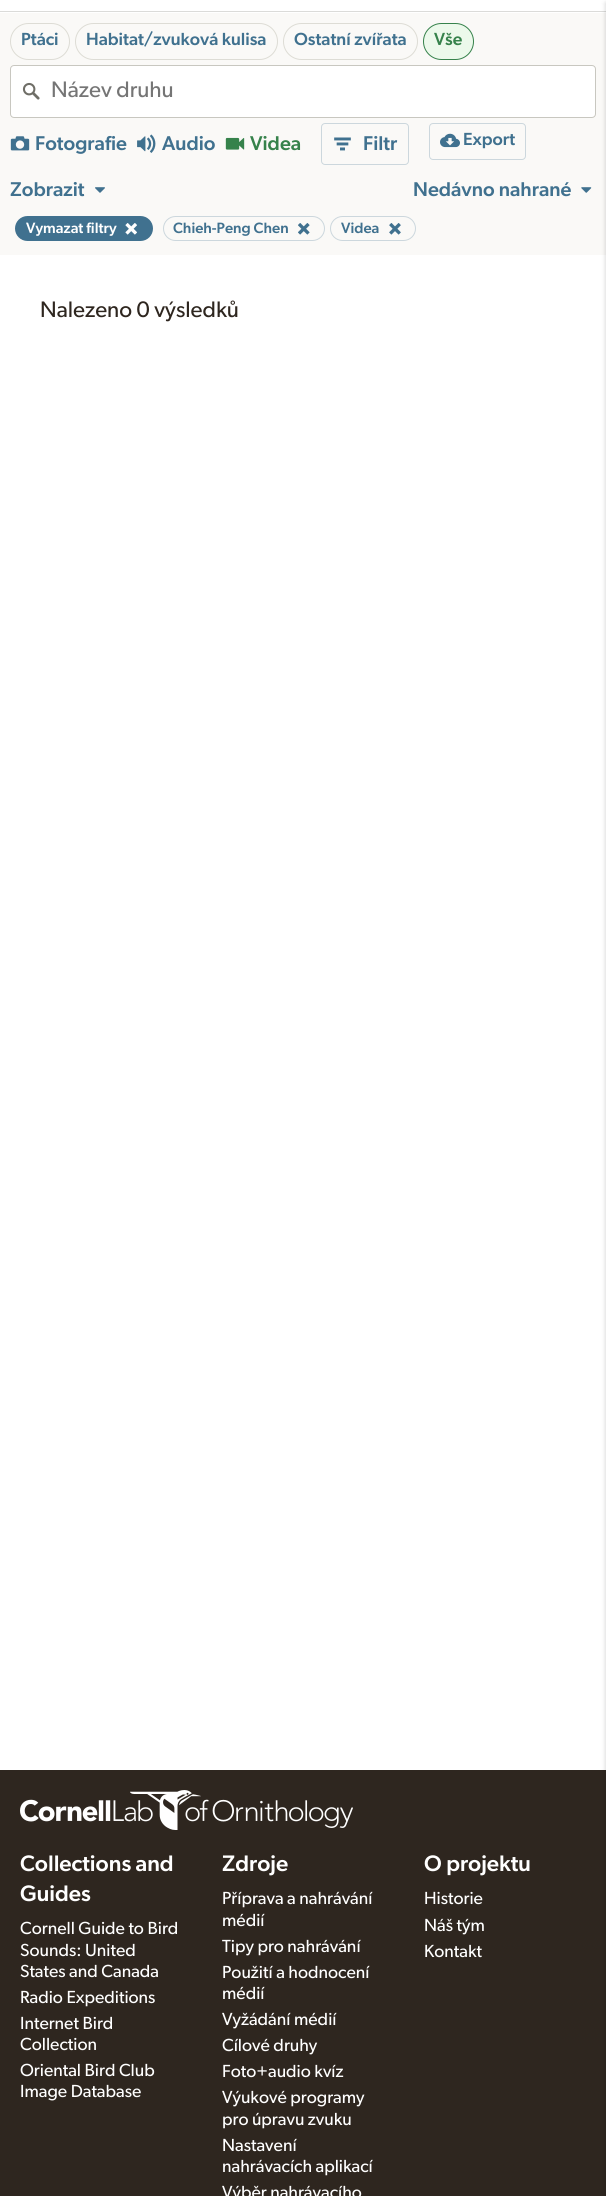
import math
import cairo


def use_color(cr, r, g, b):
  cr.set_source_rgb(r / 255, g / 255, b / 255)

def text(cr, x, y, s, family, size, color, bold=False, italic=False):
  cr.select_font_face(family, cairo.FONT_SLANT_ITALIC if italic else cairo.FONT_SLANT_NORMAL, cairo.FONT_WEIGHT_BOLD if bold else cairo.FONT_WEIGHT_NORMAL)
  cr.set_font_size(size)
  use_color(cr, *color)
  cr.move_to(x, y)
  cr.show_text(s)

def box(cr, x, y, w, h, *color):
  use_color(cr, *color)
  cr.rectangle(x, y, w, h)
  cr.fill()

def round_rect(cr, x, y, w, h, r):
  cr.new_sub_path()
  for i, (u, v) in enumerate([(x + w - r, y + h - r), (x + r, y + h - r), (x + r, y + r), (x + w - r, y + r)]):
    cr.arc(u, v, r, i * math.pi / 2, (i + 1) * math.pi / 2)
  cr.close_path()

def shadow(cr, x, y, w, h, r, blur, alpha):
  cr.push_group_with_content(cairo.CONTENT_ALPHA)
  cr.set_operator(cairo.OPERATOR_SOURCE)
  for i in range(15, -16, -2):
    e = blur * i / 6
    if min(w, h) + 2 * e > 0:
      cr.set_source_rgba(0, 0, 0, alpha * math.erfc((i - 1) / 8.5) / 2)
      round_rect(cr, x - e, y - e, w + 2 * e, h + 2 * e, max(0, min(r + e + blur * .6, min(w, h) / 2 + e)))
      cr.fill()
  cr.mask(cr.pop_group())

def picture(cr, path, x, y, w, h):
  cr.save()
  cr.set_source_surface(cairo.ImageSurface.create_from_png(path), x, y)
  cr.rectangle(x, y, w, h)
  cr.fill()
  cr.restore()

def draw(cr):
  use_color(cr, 255, 255, 255)
  cr.paint()
  box(cr, 0, 11, 606, 1, 219, 219, 217)
  box(cr, 0, 13, 606, 242, 250, 249, 247)
  box(cr, 0, 1770, 606, 426, 46, 38, 31)
  use_color(cr, 0, 0, 0)
  shadow(cr, 606, 3, 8, 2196, 0, 2.5, 0.2)
  round_rect(cr, 10.5, 23.5, 59, 36, 18)
  use_color(cr, 221, 220, 213)
  cr.set_line_width(1)
  cr.stroke()
  round_rect(cr, 75.5, 23.5, 202, 36, 18)
  cr.stroke()
  round_rect(cr, 283.5, 23.5, 134, 36, 18)
  cr.stroke()
  use_color(cr, 236, 249, 235)
  round_rect(cr, 423.5, 23.5, 50, 36, 18)
  cr.fill_preserve()
  use_color(cr, 54, 130, 75)
  cr.stroke()
  use_color(cr, 255, 255, 255)
  round_rect(cr, 10.5, 65.5, 585, 52, 3.5)
  cr.fill_preserve()
  use_color(cr, 200, 199, 192)
  cr.stroke()
  picture(cr, "img_01.png", 22, 82, 18, 18)
  picture(cr, "img_02.png", 10, 136, 20, 15)
  picture(cr, "img_03.png", 137, 134, 19, 19)
  picture(cr, "img_04.png", 225, 137, 20, 13)
  round_rect(cr, 321.5, 123.5, 87, 41, 3.5)
  use_color(cr, 204, 215, 221)
  cr.stroke()
  picture(cr, "img_05.png", 334, 137, 17, 14)
  round_rect(cr, 429.5, 123.5, 96, 36, 3.5)
  cr.stroke()
  picture(cr, "img_06.png", 440, 133, 20, 15)
  picture(cr, "img_07.png", 95, 187, 10, 6)
  picture(cr, "img_08.png", 581, 187, 11, 6)
  use_color(cr, 64, 113, 143)
  round_rect(cr, 15, 216, 138, 25, 12.5)
  cr.fill()
  picture(cr, "img_09.png", 125, 223, 12, 12)
  round_rect(cr, 163.5, 216.5, 161, 24, 12)
  use_color(cr, 204, 215, 221)
  cr.stroke()
  picture(cr, "img_10.png", 298, 223, 12, 12)
  round_rect(cr, 330.5, 216.5, 85, 24, 12)
  cr.stroke()
  picture(cr, "img_11.png", 389, 223, 12, 12)
  picture(cr, "img_12.png", 20, 1790, 333, 40)
  text(cr, 21, 45, "Ptáci", "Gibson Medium", 17.6, (64, 113, 143))
  text(cr, 86, 45, "Habitat/zvuková kulisa", "Gibson Medium", 17.6, (64, 113, 143))
  text(cr, 294, 45, "Ostatní zvířata", "Gibson Medium", 17.6, (64, 113, 143))
  text(cr, 434, 45, "Vše", "Gibson Medium", 17.6, (54, 130, 75))
  text(cr, 51, 97, "Název druhu", "Gibson", 22.5, (117, 117, 117))
  text(cr, 35, 150, "Fotografie", "Gibson Medium", 20, (64, 113, 143))
  text(cr, 162, 150, "Audio", "Gibson Medium", 20, (64, 113, 143))
  text(cr, 250, 150, "Videa", "Gibson Medium", 20, (54, 130, 75))
  text(cr, 363, 150, "Filtr", "Gibson Medium", 20, (64, 113, 143))
  text(cr, 463, 145, "Export", "Gibson Medium", 17.6, (64, 113, 143))
  text(cr, 10, 196, "Zobrazit", "Gibson Medium", 20, (64, 113, 143))
  text(cr, 413, 196, "Nedávno nahrané", "Gibson Medium", 20, (64, 113, 143))
  text(cr, 26, 233, "Vymazat filtry", "Gibson Medium", 15, (255, 255, 255))
  text(cr, 173, 233, "Chieh-Peng Chen", "Gibson Medium", 15, (64, 113, 143))
  text(cr, 341, 233, "Videa", "Gibson Medium", 15, (64, 113, 143))
  text(cr, 40, 317, "Nalezeno 0 výsledků", "Gibson", 22.5, (46, 38, 31))
  text(cr, 20, 1871, "Collections and", "Gibson Medium", 22.5, (255, 255, 255))
  text(cr, 20, 1901, "Guides", "Gibson Medium", 22.5, (255, 255, 255))
  text(cr, 20, 1934, "Cornell Guide to Bird", "Gibson", 17.6, (255, 255, 255))
  text(cr, 20, 1956, "Sounds: United", "Gibson", 17.6, (255, 255, 255))
  text(cr, 20, 1977, "States and Canada", "Gibson", 17.6, (255, 255, 255))
  text(cr, 20, 2003, "Radio Expeditions", "Gibson", 17.6, (255, 255, 255))
  text(cr, 20, 2029, "Internet Bird", "Gibson", 17.6, (255, 255, 255))
  text(cr, 20, 2050, "Collection", "Gibson", 17.6, (255, 255, 255))
  text(cr, 20, 2076, "Oriental Bird Club", "Gibson", 17.6, (255, 255, 255))
  text(cr, 20, 2097, "Image Database", "Gibson", 17.6, (255, 255, 255))
  text(cr, 222, 1871, "Zdroje", "Gibson Medium", 22.5, (255, 255, 255))
  text(cr, 222, 1904, "Příprava a nahrávání", "Gibson", 17.6, (255, 255, 255))
  text(cr, 222, 1926, "médií", "Gibson", 17.6, (255, 255, 255))
  text(cr, 222, 1952, "Tipy pro nahrávání", "Gibson", 17.6, (255, 255, 255))
  text(cr, 222, 1978, "Použití a hodnocení", "Gibson", 17.6, (255, 255, 255))
  text(cr, 222, 1999, "médií", "Gibson", 17.6, (255, 255, 255))
  text(cr, 222, 2025, "Vyžádání médií", "Gibson", 17.6, (255, 255, 255))
  text(cr, 222, 2051, "Cílové druhy", "Gibson", 17.6, (255, 255, 255))
  text(cr, 222, 2077, "Foto+audio kvíz", "Gibson", 17.6, (255, 255, 255))
  text(cr, 222, 2103, "Výukové programy", "Gibson", 17.6, (255, 255, 255))
  text(cr, 222, 2125, "pro úpravu zvuku", "Gibson", 17.6, (255, 255, 255))
  text(cr, 222, 2151, "Nastavení", "Gibson", 17.6, (255, 255, 255))
  text(cr, 222, 2172, "nahrávacích aplikací", "Gibson", 17.6, (255, 255, 255))
  text(cr, 222, 2198, "Výběr nahrávacího", "Gibson", 17.6, (255, 255, 255))
  text(cr, 424, 1871, "O projektu", "Gibson Medium", 22.5, (255, 255, 255))
  text(cr, 424, 1904, "Historie", "Gibson", 17.6, (255, 255, 255))
  text(cr, 424, 1931, "Náš tým", "Gibson", 17.6, (255, 255, 255))
  text(cr, 424, 1957, "Kontakt", "Gibson", 17.6, (255, 255, 255))


surface = cairo.ImageSurface(cairo.FORMAT_RGB24, 606, 2196)
cr = cairo.Context(surface)
options = cairo.FontOptions()
options.set_hint_metrics(cairo.HINT_METRICS_OFF)
options.set_hint_style(cairo.HINT_STYLE_NONE)
cr.set_font_options(options)
cr.set_miter_limit(4)
draw(cr)
surface.write_to_png("out.png")
